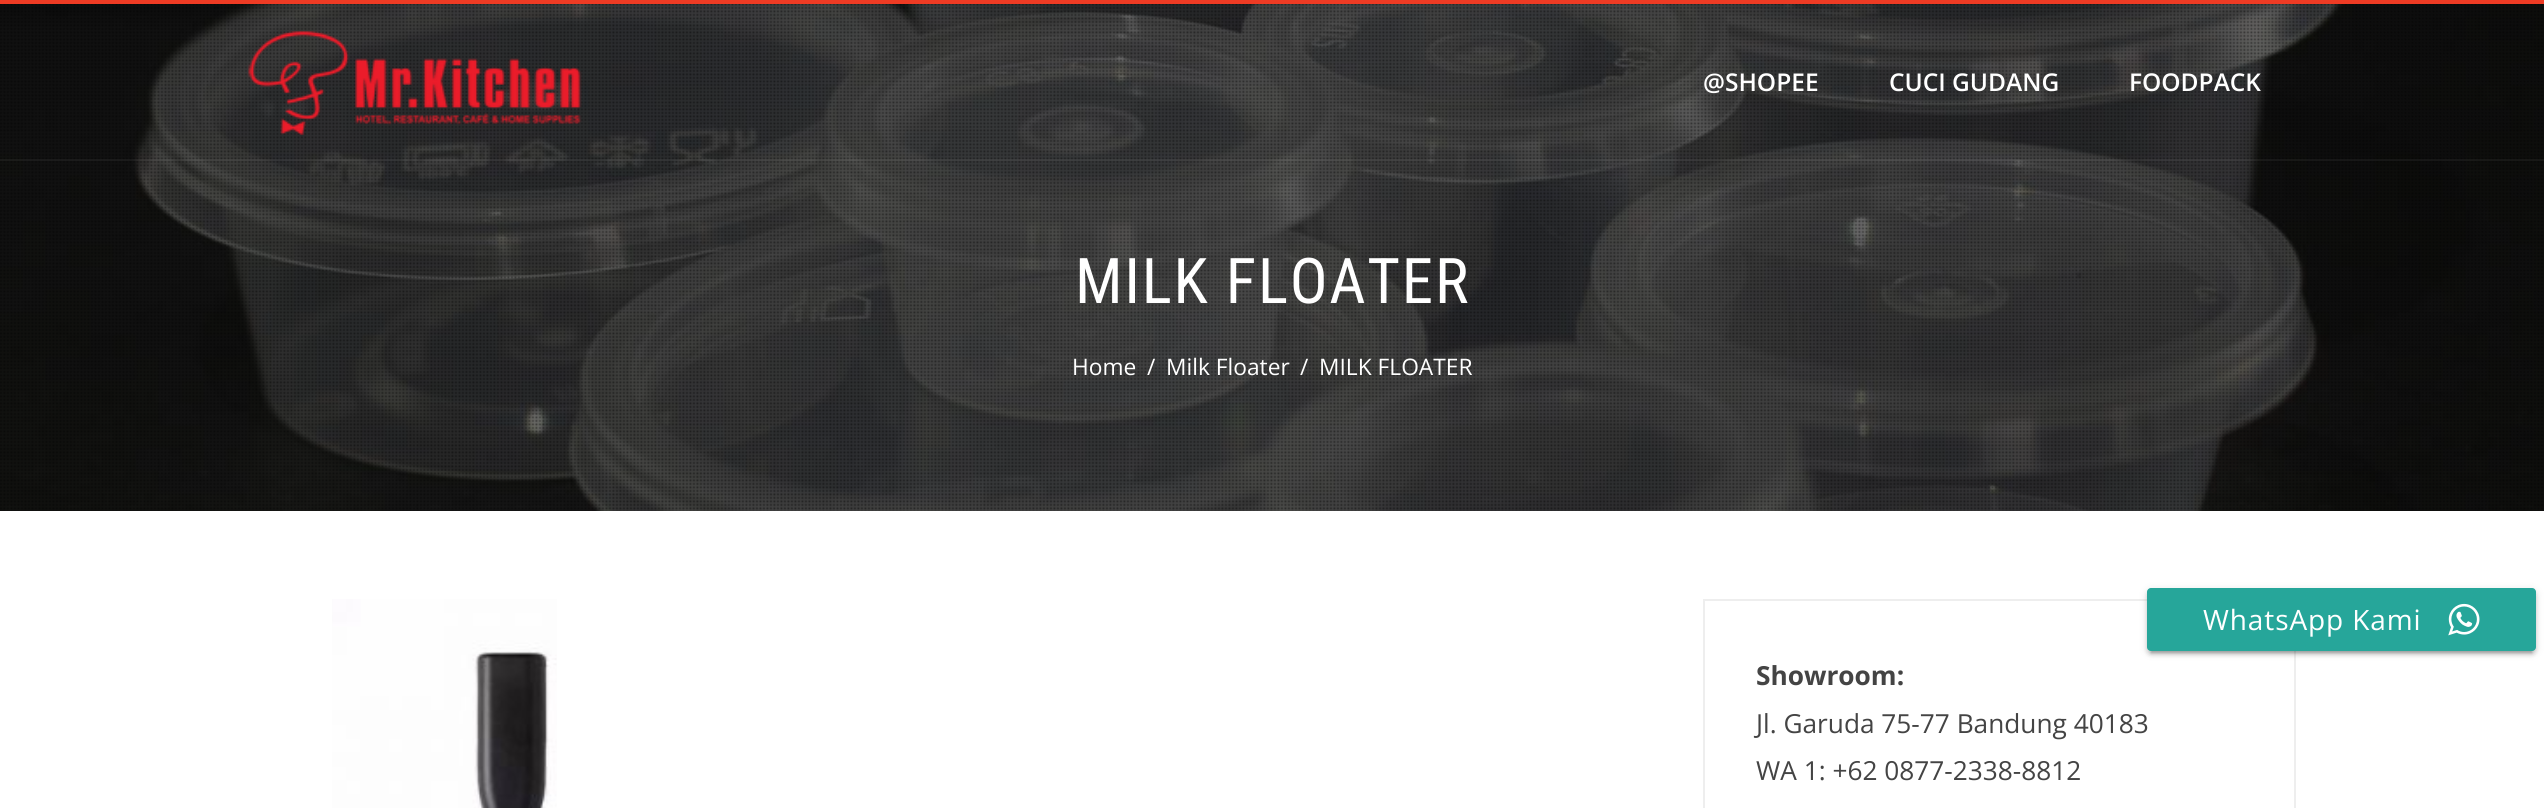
import math
import cairo


def use_color(cr, r, g, b):
  cr.set_source_rgb(r / 255, g / 255, b / 255)

def text(cr, x, y, s, family, size, color, bold=False, italic=False):
  cr.select_font_face(family, cairo.FONT_SLANT_ITALIC if italic else cairo.FONT_SLANT_NORMAL, cairo.FONT_WEIGHT_BOLD if bold else cairo.FONT_WEIGHT_NORMAL)
  cr.set_font_size(size)
  use_color(cr, *color)
  cr.move_to(x, y)
  cr.show_text(s)

def spaced_text(cr, x, y, s, letter, word):
  cr.move_to(x, y)
  for ch in s:
    cr.show_text(ch)
    cr.rel_move_to(letter + word * (ch == ' '), 0)

def box(cr, x, y, w, h, *color):
  use_color(cr, *color)
  cr.rectangle(x, y, w, h)
  cr.fill()

def round_rect(cr, x, y, w, h, r):
  cr.new_sub_path()
  for i, (u, v) in enumerate([(x + w - r, y + h - r), (x + r, y + h - r), (x + r, y + r), (x + w - r, y + r)]):
    cr.arc(u, v, r, i * math.pi / 2, (i + 1) * math.pi / 2)
  cr.close_path()

def shadow(cr, x, y, w, h, r, blur, alpha):
  cr.push_group_with_content(cairo.CONTENT_ALPHA)
  cr.set_operator(cairo.OPERATOR_SOURCE)
  for i in range(15, -16, -2):
    e = blur * i / 6
    if min(w, h) + 2 * e > 0:
      cr.set_source_rgba(0, 0, 0, alpha * math.erfc((i - 1) / 8.5) / 2)
      round_rect(cr, x - e, y - e, w + 2 * e, h + 2 * e, max(0, min(r + e + blur * .6, min(w, h) / 2 + e)))
      cr.fill()
  cr.mask(cr.pop_group())

def picture(cr, path, x, y, w, h):
  cr.save()
  cr.set_source_surface(cairo.ImageSurface.create_from_png(path), x, y)
  cr.rectangle(x, y, w, h)
  cr.fill()
  cr.restore()

def draw(cr):
  use_color(cr, 255, 255, 255)
  cr.paint()
  box(cr, 0, 0, 2544, 4, 238, 59, 36)
  picture(cr, "img_02.png", 0, 4, 2544, 507)
  picture(cr, "img_03.png", 0, 4, 2544, 507)
  cr.set_source_rgba(1, 1, 1, 0.05)
  cr.rectangle(0, 159, 2544, 2)
  cr.fill()
  picture(cr, "img_01.png", 248, 31, 334, 104)
  picture(cr, "img_04.png", 332, 599, 225, 209)
  cr.rectangle(1704, 600, 591, 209)
  use_color(cr, 238, 238, 238)
  cr.stroke()
  use_color(cr, 0, 0, 0)
  shadow(cr, 2151, 597, 381, 56, 0, 1, 0.2)
  shadow(cr, 2147, 590, 389, 63, 4, 4.5, 0.12)
  shadow(cr, 2147, 592, 389, 63, 4, 2, 0.14)
  use_color(cr, 38, 166, 154)
  round_rect(cr, 2147, 588, 389, 63, 4)
  cr.fill()
  picture(cr, "img_05.png", 2448, 603, 32, 33)
  text(cr, 1703, 91, "@SHOPEE", "Open Sans SemiBold", 24.5, (255, 255, 255))
  text(cr, 1889, 91, "CUCI GUDANG", "Open Sans SemiBold", 24.5, (255, 255, 255))
  text(cr, 2129, 91, "FOODPACK", "Open Sans SemiBold", 24.5, (255, 255, 255))
  cr.select_font_face("Roboto Condensed")
  cr.set_font_size(63)
  spaced_text(cr, 1075, 303, "MILK FLOATER", 1.75, 0)
  text(cr, 1072, 375, "Home", "Open Sans", 22.75, (255, 255, 255))
  text(cr, 1147, 375, "/", "Open Sans", 22.75, (255, 255, 255))
  text(cr, 1166, 375, "Milk Floater", "Open Sans", 22.75, (255, 255, 255))
  text(cr, 1300, 375, "/", "Open Sans", 22.75, (255, 255, 255))
  text(cr, 1319, 375, "MILK FLOATER", "Open Sans", 22.75, (255, 255, 255))
  text(cr, 1756, 685, "Showroom:", "Open Sans", 26.25, (68, 68, 68), bold=True)
  text(cr, 1756, 733, "Jl. Garuda 75-77 Bandung 40183", "Open Sans", 26.25, (68, 68, 68))
  text(cr, 1756, 780, "WA 1: +62 0877-2338-8812", "Open Sans", 26.25, (68, 68, 68))
  cr.set_font_size(28)
  use_color(cr, 255, 255, 255)
  spaced_text(cr, 2203, 630, "WhatsApp Kami", 0.9, 0)


surface = cairo.ImageSurface(cairo.FORMAT_RGB24, 2544, 808)
cr = cairo.Context(surface)
options = cairo.FontOptions()
options.set_hint_metrics(cairo.HINT_METRICS_OFF)
options.set_hint_style(cairo.HINT_STYLE_NONE)
cr.set_font_options(options)
cr.set_miter_limit(4)
draw(cr)
surface.write_to_png("out.png")
